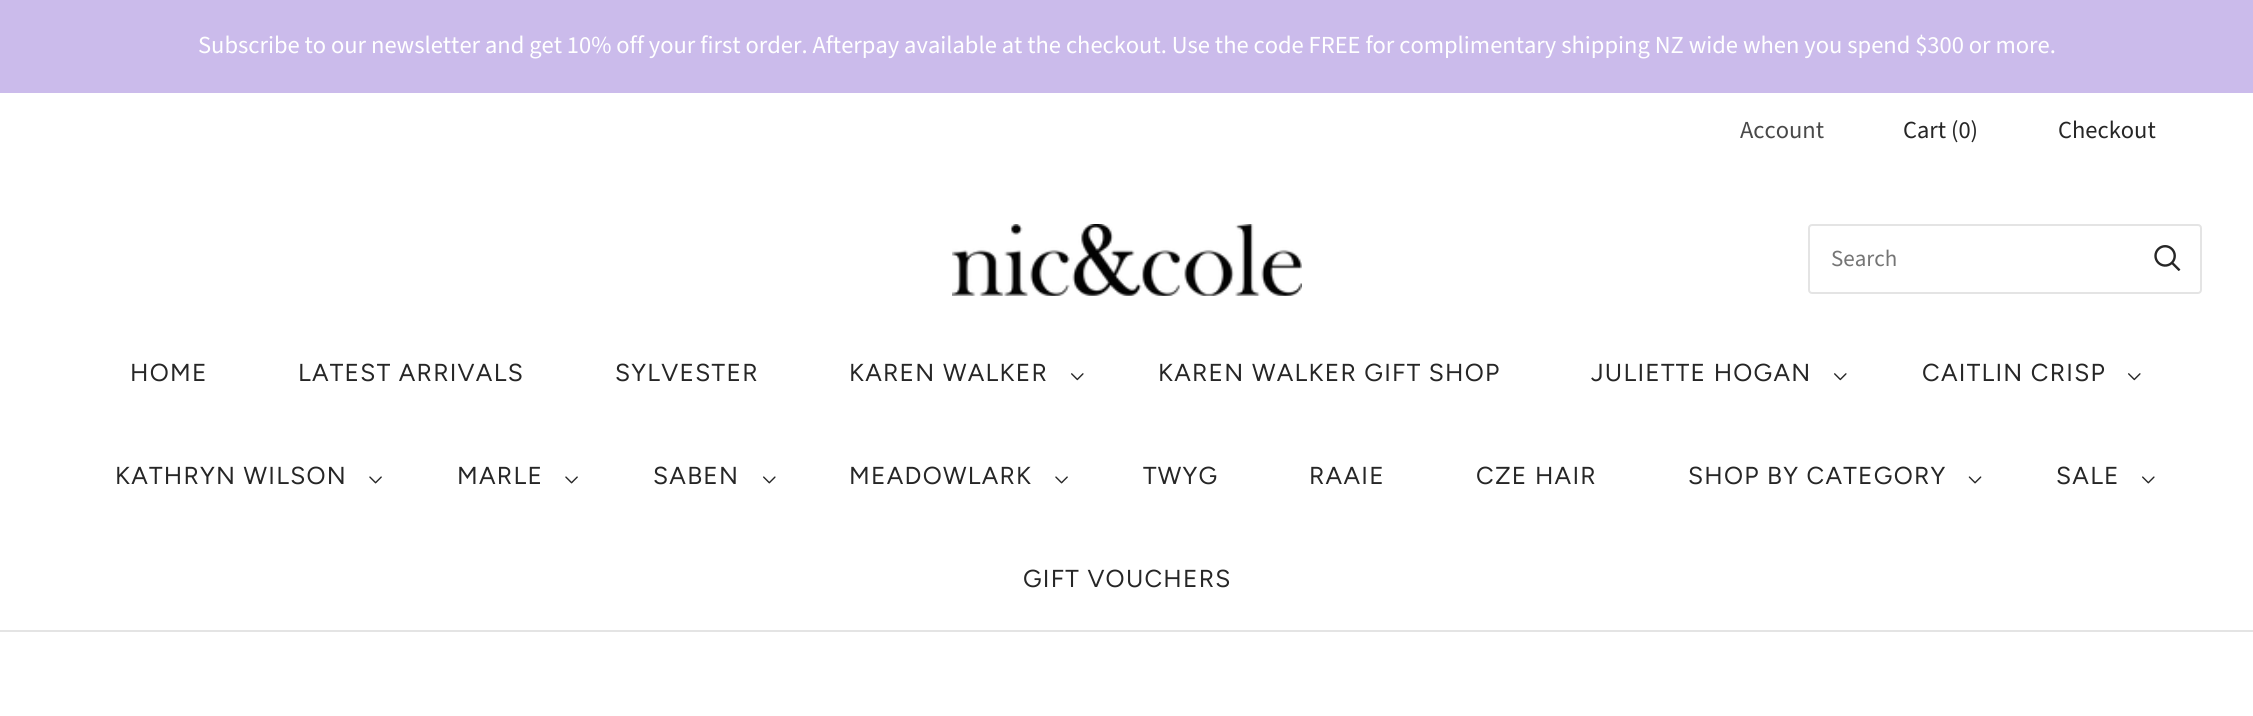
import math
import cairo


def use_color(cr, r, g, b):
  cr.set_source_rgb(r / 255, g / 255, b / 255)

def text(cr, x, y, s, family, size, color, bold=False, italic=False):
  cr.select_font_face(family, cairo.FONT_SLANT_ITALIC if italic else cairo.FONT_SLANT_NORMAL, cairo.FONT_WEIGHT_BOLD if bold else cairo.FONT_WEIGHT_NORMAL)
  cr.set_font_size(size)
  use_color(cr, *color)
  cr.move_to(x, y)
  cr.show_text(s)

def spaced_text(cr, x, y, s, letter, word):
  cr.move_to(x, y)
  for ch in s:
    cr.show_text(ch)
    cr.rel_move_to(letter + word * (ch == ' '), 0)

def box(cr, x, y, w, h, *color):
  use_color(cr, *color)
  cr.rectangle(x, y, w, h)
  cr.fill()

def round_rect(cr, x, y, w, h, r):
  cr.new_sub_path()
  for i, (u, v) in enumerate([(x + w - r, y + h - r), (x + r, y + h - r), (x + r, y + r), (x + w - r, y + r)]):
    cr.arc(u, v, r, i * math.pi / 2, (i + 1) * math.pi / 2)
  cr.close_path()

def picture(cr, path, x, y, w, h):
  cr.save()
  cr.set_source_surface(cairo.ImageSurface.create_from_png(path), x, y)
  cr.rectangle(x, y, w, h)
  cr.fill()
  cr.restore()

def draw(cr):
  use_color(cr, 255, 255, 255)
  cr.paint()
  box(cr, 0, 0, 2253, 93, 203, 187, 235)
  box(cr, 0, 630, 2253, 2, 228, 228, 228)
  picture(cr, "img_01.png", 952, 224, 350, 72)
  round_rect(cr, 1809, 225, 392, 68, 3)
  cr.stroke()
  picture(cr, "img_02.png", 2154, 245, 27, 26)
  picture(cr, "img_03.png", 1071, 373, 13, 8)
  picture(cr, "img_03.png", 1834, 373, 13, 8)
  picture(cr, "img_03.png", 2128, 373, 13, 8)
  picture(cr, "img_04.png", 369, 476, 13, 8)
  picture(cr, "img_04.png", 565, 476, 13, 8)
  picture(cr, "img_05.png", 763, 476, 13, 8)
  picture(cr, "img_04.png", 1055, 476, 13, 8)
  picture(cr, "img_06.png", 1968, 476, 14, 8)
  picture(cr, "img_05.png", 2142, 476, 13, 8)
  text(cr, 198, 53, "Subscribe to our newsletter and get 10% off your first order. Afterpay available at the checkout. Use the code FREE for complimentary shipping NZ wide when you spend $300 or more.", "Source Sans Pro", 24.5, (255, 255, 255))
  text(cr, 1740, 138, "Account", "Source Sans Pro", 24.5, (73, 73, 73))
  text(cr, 1903, 138, "Cart (0)", "Source Sans Pro", 24.5, (38, 38, 38))
  text(cr, 2058, 138, "Checkout", "Source Sans Pro", 24.5, (38, 38, 38))
  text(cr, 1831, 266, "Search", "Source Sans Pro", 23, (117, 117, 117))
  cr.select_font_face("Figtree")
  cr.set_font_size(24.5)
  use_color(cr, 38, 38, 38)
  spaced_text(cr, 130, 381, "HOME", 1.25, 0)
  spaced_text(cr, 298, 381, "LATEST ARRIVALS", 1.25, 0)
  spaced_text(cr, 615, 381, "SYLVESTER", 1.25, 0)
  spaced_text(cr, 849, 381, "KAREN WALKER", 1.25, 0)
  spaced_text(cr, 1158, 381, "KAREN WALKER GIFT SHOP", 1.25, 0)
  spaced_text(cr, 1591, 381, "JULIETTE HOGAN", 1.25, 0)
  spaced_text(cr, 1922, 381, "CAITLIN CRISP", 1.25, 0)
  spaced_text(cr, 115, 484, "KATHRYN WILSON", 1.25, 0)
  spaced_text(cr, 457, 484, "MARLE", 1.25, 0)
  spaced_text(cr, 653, 484, "SABEN", 1.25, 0)
  spaced_text(cr, 849, 484, "MEADOWLARK", 1.25, 0)
  spaced_text(cr, 1143, 484, "TWYG", 1.25, 0)
  spaced_text(cr, 1309, 484, "RAAIE", 1.25, 0)
  spaced_text(cr, 1476, 484, "CZE HAIR", 1.25, 0)
  spaced_text(cr, 1688, 484, "SHOP BY CATEGORY", 1.25, 0)
  spaced_text(cr, 2056, 484, "SALE", 1.25, 0)
  spaced_text(cr, 1023, 587, "GIFT VOUCHERS", 1.25, 0)


surface = cairo.ImageSurface(cairo.FORMAT_RGB24, 2253, 716)
cr = cairo.Context(surface)
options = cairo.FontOptions()
options.set_hint_metrics(cairo.HINT_METRICS_OFF)
options.set_hint_style(cairo.HINT_STYLE_NONE)
cr.set_font_options(options)
cr.set_miter_limit(4)
draw(cr)
surface.write_to_png("out.png")
